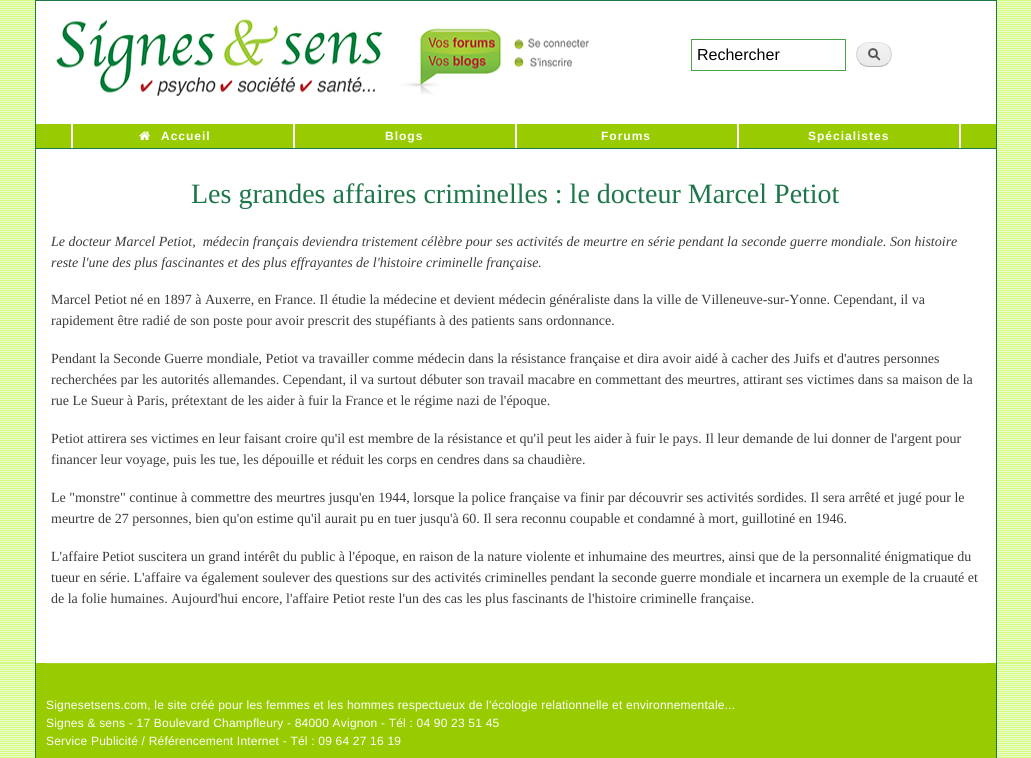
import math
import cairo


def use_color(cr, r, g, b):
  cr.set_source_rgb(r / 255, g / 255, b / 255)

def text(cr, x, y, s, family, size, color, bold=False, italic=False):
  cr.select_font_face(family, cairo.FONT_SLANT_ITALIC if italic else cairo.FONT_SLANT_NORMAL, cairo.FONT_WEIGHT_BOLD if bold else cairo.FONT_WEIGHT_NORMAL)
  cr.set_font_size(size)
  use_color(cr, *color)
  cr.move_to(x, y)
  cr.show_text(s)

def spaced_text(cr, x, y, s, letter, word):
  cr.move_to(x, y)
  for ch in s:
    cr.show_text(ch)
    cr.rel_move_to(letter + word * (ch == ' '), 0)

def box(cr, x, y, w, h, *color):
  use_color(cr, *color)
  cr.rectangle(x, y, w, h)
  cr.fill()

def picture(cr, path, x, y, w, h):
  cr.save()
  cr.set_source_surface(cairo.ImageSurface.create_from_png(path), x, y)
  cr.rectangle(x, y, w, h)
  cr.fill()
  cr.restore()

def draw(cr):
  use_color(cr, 255, 255, 255)
  cr.paint()
  picture(cr, "img_01.png", 0, 0, 1031, 663)
  box(cr, 36, 1, 960, 123, 255, 255, 255)
  box(cr, 35, 0, 962, 1, 29, 119, 74)
  box(cr, 996, 0, 1, 148, 29, 119, 74)
  box(cr, 35, 0, 1, 148, 29, 119, 74)
  picture(cr, "img_02.png", 56, 19, 533, 77)
  cr.rectangle(691.5, 39.5, 154, 31)
  use_color(cr, 71, 164, 71)
  cr.set_line_width(1)
  cr.stroke()
  picture(cr, "img_03.png", 857, 43, 34, 24)
  cr.new_path()
  cr.move_to(860, 46)
  cr.curve_to(864, 42, 869, 42.5, 874, 42.5)
  cr.curve_to(879, 42.5, 884, 42, 888, 46)
  use_color(cr, 228, 228, 228)
  cr.stroke()
  cr.new_path()
  cr.move_to(888, 46)
  cr.curve_to(892.5, 50.5, 892.5, 58.5, 888, 63)
  use_color(cr, 210, 210, 210)
  cr.stroke()
  cr.new_path()
  cr.move_to(888, 63)
  cr.curve_to(884, 67, 879, 66.5, 874, 66.5)
  cr.curve_to(869, 66.5, 864, 67, 860, 63)
  use_color(cr, 180, 180, 180)
  cr.stroke()
  cr.new_path()
  cr.move_to(860, 63)
  cr.curve_to(855.5, 58.5, 855.5, 50.5, 860, 46)
  use_color(cr, 210, 210, 210)
  cr.stroke()
  box(cr, 36, 124, 960, 24, 153, 204, 0)
  box(cr, 293, 124, 2, 24, 255, 255, 255)
  box(cr, 71, 124, 2, 24, 255, 255, 255)
  picture(cr, "img_04.png", 139, 131, 11, 9)
  box(cr, 515, 124, 2, 24, 255, 255, 255)
  box(cr, 737, 124, 2, 24, 255, 255, 255)
  box(cr, 959, 124, 2, 24, 255, 255, 255)
  box(cr, 36, 149, 960, 514, 255, 255, 255)
  box(cr, 35, 148, 962, 1, 29, 119, 74)
  box(cr, 996, 148, 1, 515, 29, 119, 74)
  box(cr, 35, 148, 1, 515, 29, 119, 74)
  picture(cr, "img_05.png", 0, 663, 1031, 95)
  box(cr, 36, 663, 960, 95, 153, 204, 0)
  box(cr, 996, 663, 1, 95, 29, 119, 74)
  box(cr, 35, 663, 1, 95, 29, 119, 74)
  box(cr, 46, 663, 940, 1, 168, 212, 38)
  text(cr, 697, 60, "Rechercher", "Liberation Sans", 16, (0, 0, 0))
  cr.select_font_face("Liberation Sans", cairo.FONT_SLANT_NORMAL, cairo.FONT_WEIGHT_BOLD)
  cr.set_font_size(12)
  use_color(cr, 255, 255, 255)
  spaced_text(cr, 161, 140, "Accueil", 1, 0)
  spaced_text(cr, 385, 140, "Blogs", 1, 0)
  spaced_text(cr, 601, 140, "Forums", 1, 0)
  spaced_text(cr, 808, 140, "Spécialistes", 1, 0)
  text(cr, 191, 203, "Les grandes affaires criminelles : le docteur Marcel Petiot", "Liberation Serif", 28, (29, 119, 74))
  text(cr, 51, 246, "Le docteur Marcel Petiot,  médecin français deviendra tristement célèbre pour ses activités de meurtre en série pendant la seconde guerre mondiale. Son histoire", "Liberation Serif", 14, (59, 59, 59), italic=True)
  text(cr, 51, 267, "reste l'une des plus fascinantes et des plus effrayantes de l'histoire criminelle française.", "Liberation Serif", 14, (59, 59, 59), italic=True)
  text(cr, 51, 304, "Marcel Petiot né en 1897 à Auxerre, en France. Il étudie la médecine et devient médecin généraliste dans la ville de Villeneuve-sur-Yonne. Cependant, il va", "Liberation Serif", 14, (59, 59, 59))
  text(cr, 51, 325, "rapidement être radié de son poste pour avoir prescrit des stupéfiants à des patients sans ordonnance.", "Liberation Serif", 14, (59, 59, 59))
  text(cr, 51, 363, "Pendant la Seconde Guerre mondiale, Petiot va travailler comme médecin dans la résistance française et dira avoir aidé à cacher des Juifs et d'autres personnes", "Liberation Serif", 14, (59, 59, 59))
  text(cr, 51, 384, "recherchées par les autorités allemandes. Cependant, il va surtout débuter son travail macabre en commettant des meurtres, attirant ses victimes dans sa maison de la", "Liberation Serif", 14, (59, 59, 59))
  text(cr, 51, 405, "rue Le Sueur à Paris, prétextant de les aider à fuir la France et le régime nazi de l'époque.", "Liberation Serif", 14, (59, 59, 59))
  text(cr, 51, 443, "Petiot attirera ses victimes en leur faisant croire qu'il est membre de la résistance et qu'il peut les aider à fuir le pays. Il leur demande de lui donner de l'argent pour", "Liberation Serif", 14, (59, 59, 59))
  text(cr, 51, 464, "financer leur voyage, puis les tue, les dépouille et réduit les corps en cendres dans sa chaudière.", "Liberation Serif", 14, (59, 59, 59))
  text(cr, 51, 502, "Le \"monstre\" continue à commettre des meurtres jusqu'en 1944, lorsque la police française va finir par découvrir ses activités sordides. Il sera arrêté et jugé pour le", "Liberation Serif", 14, (59, 59, 59))
  text(cr, 51, 523, "meurtre de 27 personnes, bien qu'on estime qu'il aurait pu en tuer jusqu'à 60. Il sera reconnu coupable et condamné à mort, guillotiné en 1946.", "Liberation Serif", 14, (59, 59, 59))
  text(cr, 51, 561, "L'affaire Petiot suscitera un grand intérêt du public à l'époque, en raison de la nature violente et inhumaine des meurtres, ainsi que de la personnalité énigmatique du", "Liberation Serif", 14, (59, 59, 59))
  text(cr, 51, 582, "tueur en série. L'affaire va également soulever des questions sur des activités criminelles pendant la seconde guerre mondiale et incarnera un exemple de la cruauté et", "Liberation Serif", 14, (59, 59, 59))
  text(cr, 51, 603, "de la folie humaines. Aujourd'hui encore, l'affaire Petiot reste l'un des cas les plus fascinants de l'histoire criminelle française.", "Liberation Serif", 14, (59, 59, 59))
  cr.select_font_face("Liberation Sans")
  cr.set_font_size(12)
  use_color(cr, 255, 255, 255)
  spaced_text(cr, 46, 709, "Signesetsens.com, le site créé pour les femmes et les hommes respectueux de l'écologie relationnelle et environnementale...", 0.2, 0)
  spaced_text(cr, 46, 727, "Signes & sens - 17 Boulevard Champfleury - 84000 Avignon - Tél : 04 90 23 51 45", 0.2, 0)
  spaced_text(cr, 46, 745, "Service Publicité / Référencement Internet - Tél : 09 64 27 16 19", 0.2, 0)


surface = cairo.ImageSurface(cairo.FORMAT_RGB24, 1031, 758)
cr = cairo.Context(surface)
options = cairo.FontOptions()
options.set_hint_metrics(cairo.HINT_METRICS_OFF)
options.set_hint_style(cairo.HINT_STYLE_NONE)
cr.set_font_options(options)
cr.set_miter_limit(4)
draw(cr)
surface.write_to_png("out.png")
